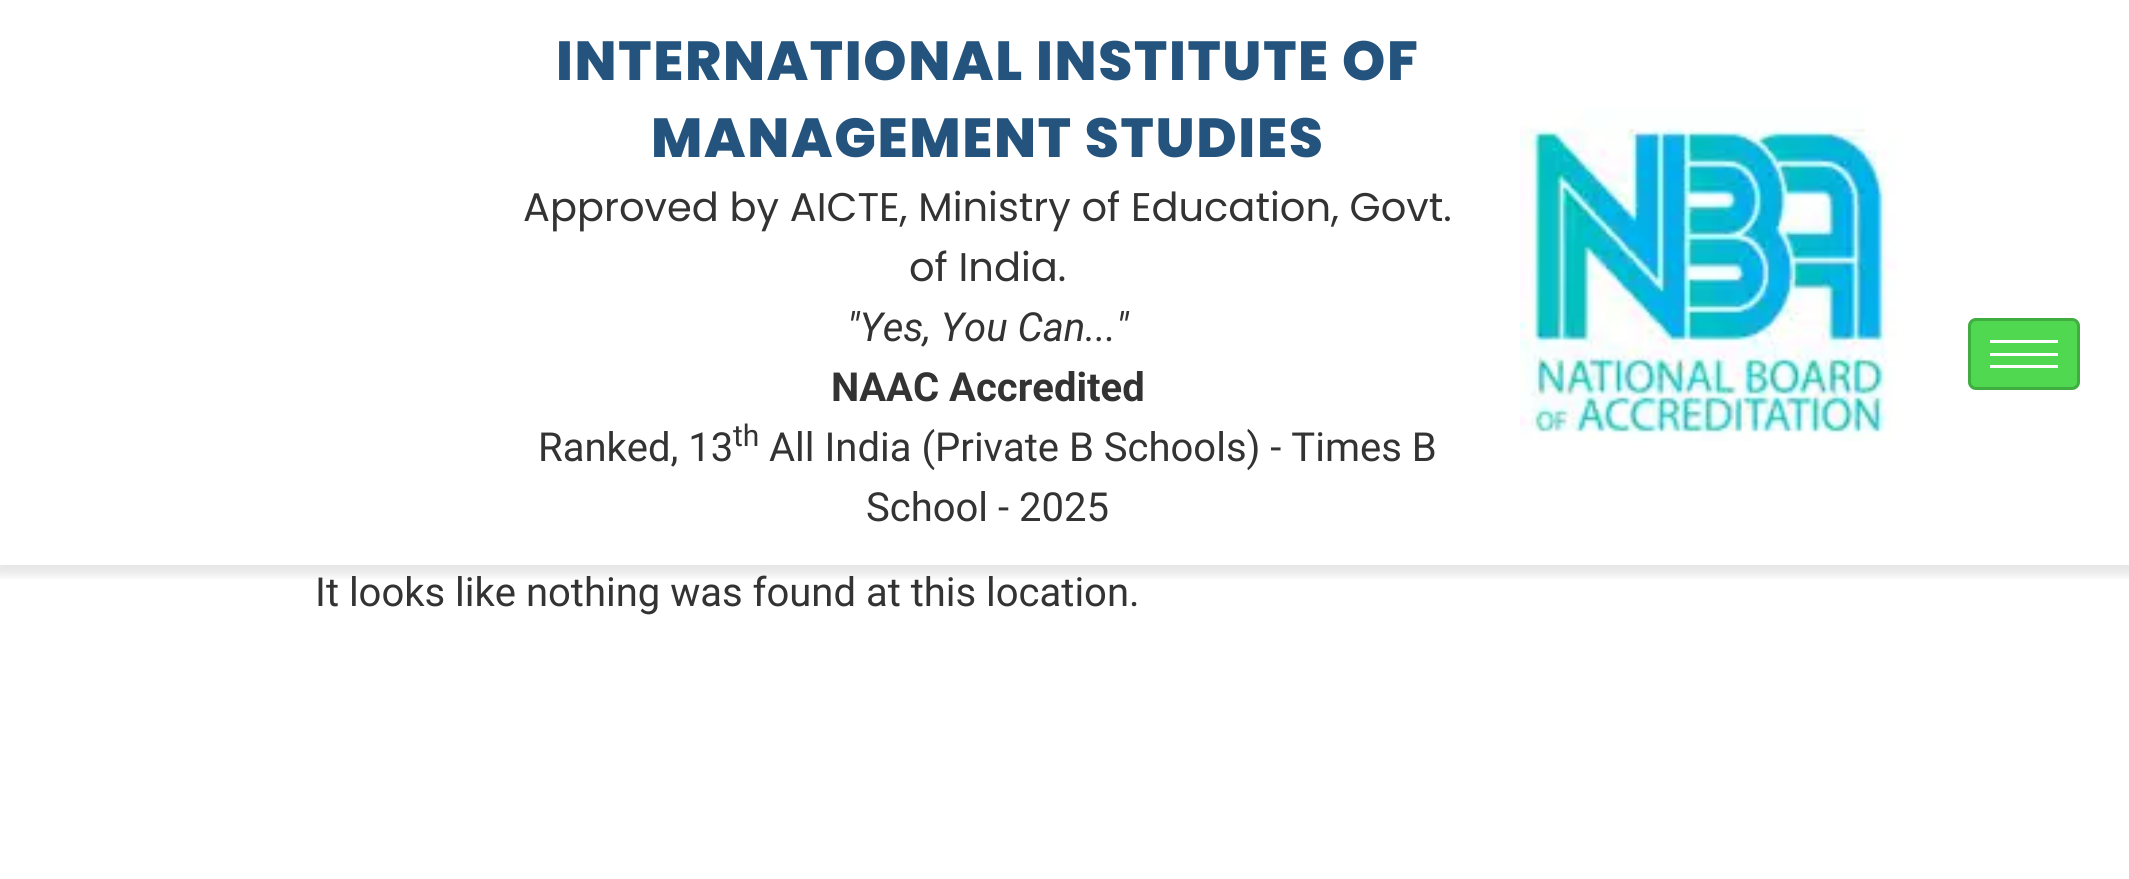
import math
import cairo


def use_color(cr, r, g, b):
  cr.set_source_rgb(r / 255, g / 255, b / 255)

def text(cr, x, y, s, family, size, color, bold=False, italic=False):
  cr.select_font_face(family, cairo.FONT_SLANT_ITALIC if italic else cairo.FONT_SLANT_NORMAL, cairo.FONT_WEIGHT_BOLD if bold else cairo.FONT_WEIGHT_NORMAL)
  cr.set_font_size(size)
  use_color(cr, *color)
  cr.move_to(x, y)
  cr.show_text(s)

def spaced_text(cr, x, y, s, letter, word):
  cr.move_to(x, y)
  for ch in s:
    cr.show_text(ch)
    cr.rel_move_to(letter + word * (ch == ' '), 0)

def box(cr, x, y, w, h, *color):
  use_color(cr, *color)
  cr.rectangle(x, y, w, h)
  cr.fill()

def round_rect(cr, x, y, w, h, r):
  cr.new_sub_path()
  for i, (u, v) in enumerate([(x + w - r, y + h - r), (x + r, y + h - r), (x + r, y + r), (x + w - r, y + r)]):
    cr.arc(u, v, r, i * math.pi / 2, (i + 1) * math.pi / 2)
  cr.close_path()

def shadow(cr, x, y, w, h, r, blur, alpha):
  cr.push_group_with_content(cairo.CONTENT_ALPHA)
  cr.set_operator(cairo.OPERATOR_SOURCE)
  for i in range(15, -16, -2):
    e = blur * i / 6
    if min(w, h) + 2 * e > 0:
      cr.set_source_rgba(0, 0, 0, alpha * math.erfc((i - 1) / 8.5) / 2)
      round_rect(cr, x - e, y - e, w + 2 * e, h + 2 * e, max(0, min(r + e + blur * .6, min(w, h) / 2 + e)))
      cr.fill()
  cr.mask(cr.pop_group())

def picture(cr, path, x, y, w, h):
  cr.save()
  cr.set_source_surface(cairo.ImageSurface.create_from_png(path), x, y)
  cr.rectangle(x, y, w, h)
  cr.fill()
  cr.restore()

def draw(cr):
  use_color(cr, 255, 255, 255)
  cr.paint()
  cr.save()
  cr.rectangle(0, 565, 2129, 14)
  cr.clip()
  use_color(cr, 0, 0, 0)
  shadow(cr, -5, 0, 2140, 575, 0, 5, 0.1)
  cr.restore()
  picture(cr, "img_01.png", 1520, 108, 377, 333)
  use_color(cr, 80, 216, 81)
  round_rect(cr, 1968, 318, 112, 72, 8)
  cr.fill()
  round_rect(cr, 1969.5, 319.5, 109, 69, 6.5)
  cr.set_source_rgba(0, 0, 0, 0.2)
  cr.set_line_width(3)
  cr.stroke()
  box(cr, 1990, 340, 68, 3, 255, 255, 255)
  box(cr, 1990, 353, 68, 3, 255, 255, 255)
  box(cr, 1990, 365, 68, 3, 255, 255, 255)
  cr.select_font_face("Poppins ExtraBold")
  cr.set_font_size(55)
  use_color(cr, 36, 84, 125)
  spaced_text(cr, 556, 80, "INTERNATIONAL INSTITUTE OF", 1.65, 0)
  spaced_text(cr, 651, 157, "MANAGEMENT STUDIES", 1.65, 0)
  text(cr, 523, 221, "Approved by AICTE, Ministry of Education, Govt.", "Poppins", 40, (51, 51, 51))
  text(cr, 909, 281, "of India.", "Poppins", 40, (51, 51, 51))
  text(cr, 847, 341, "\"Yes, You Can...\"", "Roboto", 40, (51, 51, 51), italic=True)
  text(cr, 831, 401, "NAAC Accredited", "Roboto", 40, (51, 51, 51), bold=True)
  text(cr, 538, 461, "Ranked, 13", "Roboto", 40, (51, 51, 51))
  text(cr, 733, 446, "th", "Roboto", 30, (51, 51, 51))
  text(cr, 769, 461, "All India (Private B Schools) - Times B", "Roboto", 40, (51, 51, 51))
  text(cr, 866, 521, "School - 2025", "Roboto", 40, (51, 51, 51))
  text(cr, 315, 606, "It looks like nothing was found at this location.", "Roboto", 40, (51, 51, 51))


surface = cairo.ImageSurface(cairo.FORMAT_RGB24, 2129, 879)
cr = cairo.Context(surface)
options = cairo.FontOptions()
options.set_hint_metrics(cairo.HINT_METRICS_OFF)
options.set_hint_style(cairo.HINT_STYLE_NONE)
cr.set_font_options(options)
cr.set_miter_limit(4)
draw(cr)
surface.write_to_png("out.png")
